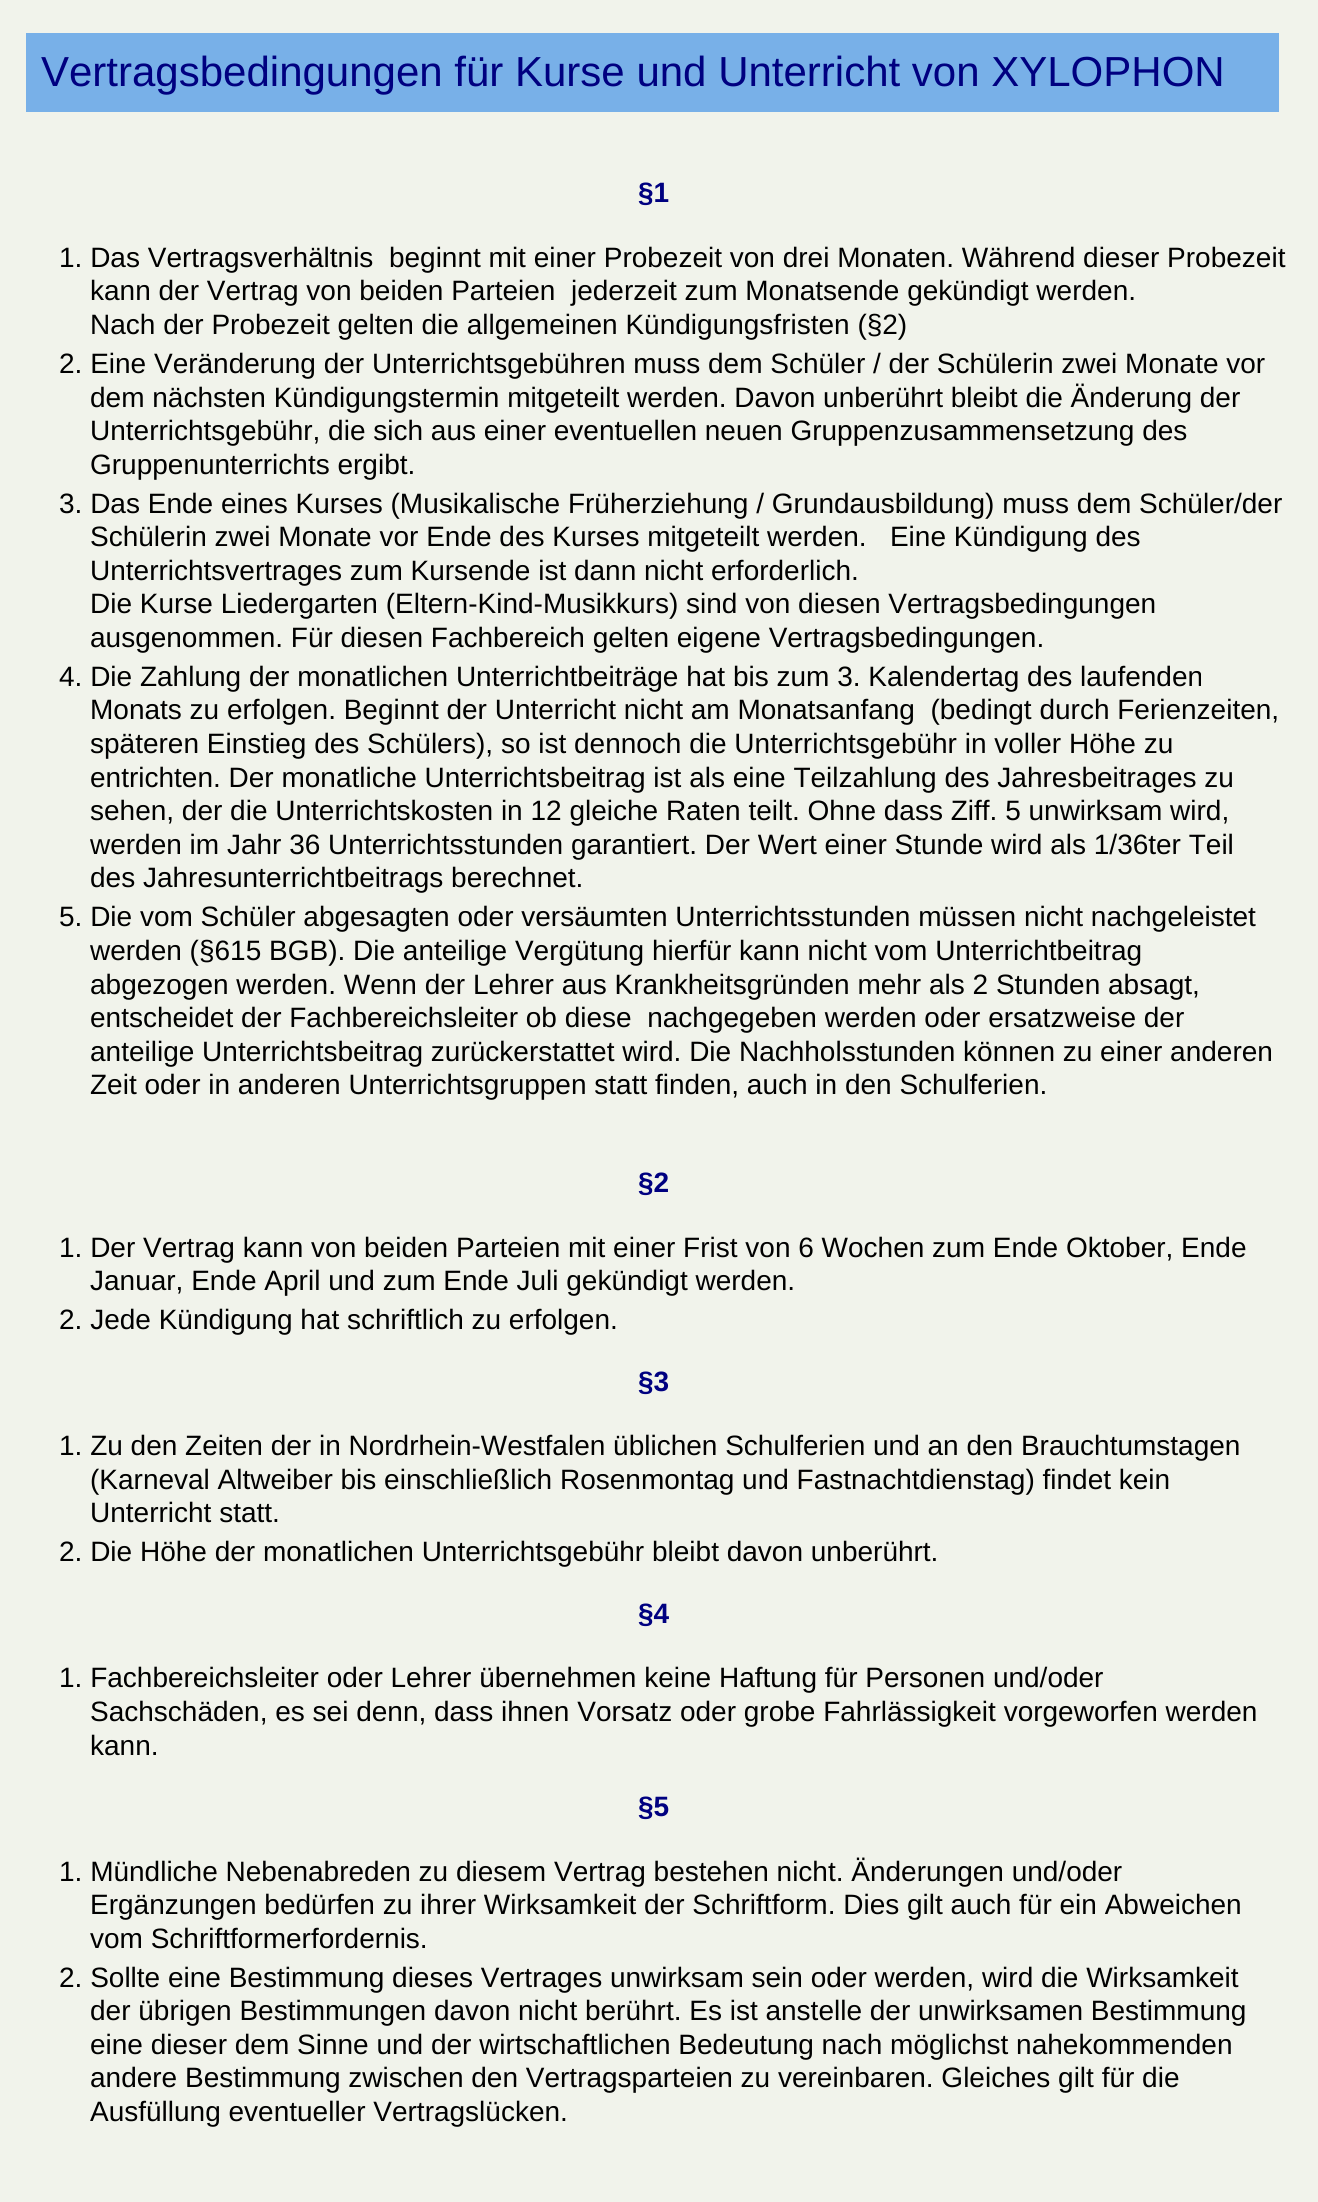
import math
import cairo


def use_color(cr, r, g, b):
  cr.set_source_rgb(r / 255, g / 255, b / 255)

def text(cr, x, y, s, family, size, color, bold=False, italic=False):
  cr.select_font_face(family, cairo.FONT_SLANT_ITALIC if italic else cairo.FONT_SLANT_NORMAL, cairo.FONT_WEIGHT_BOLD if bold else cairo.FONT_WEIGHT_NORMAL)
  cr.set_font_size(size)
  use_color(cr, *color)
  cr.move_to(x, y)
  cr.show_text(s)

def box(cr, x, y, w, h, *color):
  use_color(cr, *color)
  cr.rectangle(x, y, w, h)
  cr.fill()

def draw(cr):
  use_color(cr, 241, 243, 235)
  cr.paint()
  box(cr, 26, 33, 1253, 79, 120, 176, 232)
  text(cr, 41, 86, "Vertragsbedingungen für Kurse und Unterricht von XYLOPHON", "Liberation Sans", 42, (0, 0, 128))
  text(cr, 638, 202, "§1", "Liberation Sans", 28, (0, 0, 128), bold=True)
  text(cr, 59, 267, "1. Das Vertragsverhältnis  beginnt mit einer Probezeit von drei Monaten. Während dieser Probezeit", "Liberation Sans", 28, (0, 0, 0))
  text(cr, 90, 300, "kann der Vertrag von beiden Parteien  jederzeit zum Monatsende gekündigt werden.", "Liberation Sans", 28, (0, 0, 0))
  text(cr, 90, 334, "Nach der Probezeit gelten die allgemeinen Kündigungsfristen (§2)", "Liberation Sans", 28, (0, 0, 0))
  text(cr, 59, 373, "2. Eine Veränderung der Unterrichtsgebühren muss dem Schüler / der Schülerin zwei Monate vor", "Liberation Sans", 28, (0, 0, 0))
  text(cr, 90, 407, "dem nächsten Kündigungstermin mitgeteilt werden. Davon unberührt bleibt die Änderung der", "Liberation Sans", 28, (0, 0, 0))
  text(cr, 90, 440, "Unterrichtsgebühr, die sich aus einer eventuellen neuen Gruppenzusammensetzung des", "Liberation Sans", 28, (0, 0, 0))
  text(cr, 90, 474, "Gruppenunterrichts ergibt.", "Liberation Sans", 28, (0, 0, 0))
  text(cr, 59, 513, "3. Das Ende eines Kurses (Musikalische Früherziehung / Grundausbildung) muss dem Schüler/der", "Liberation Sans", 28, (0, 0, 0))
  text(cr, 90, 546, "Schülerin zwei Monate vor Ende des Kurses mitgeteilt werden.   Eine Kündigung des", "Liberation Sans", 28, (0, 0, 0))
  text(cr, 90, 580, "Unterrichtsvertrages zum Kursende ist dann nicht erforderlich.", "Liberation Sans", 28, (0, 0, 0))
  text(cr, 90, 613, "Die Kurse Liedergarten (Eltern-Kind-Musikkurs) sind von diesen Vertragsbedingungen", "Liberation Sans", 28, (0, 0, 0))
  text(cr, 90, 647, "ausgenommen. Für diesen Fachbereich gelten eigene Vertragsbedingungen.", "Liberation Sans", 28, (0, 0, 0))
  text(cr, 59, 686, "4. Die Zahlung der monatlichen Unterrichtbeiträge hat bis zum 3. Kalendertag des laufenden", "Liberation Sans", 28, (0, 0, 0))
  text(cr, 90, 719, "Monats zu erfolgen. Beginnt der Unterricht nicht am Monatsanfang  (bedingt durch Ferienzeiten,", "Liberation Sans", 28, (0, 0, 0))
  text(cr, 90, 753, "späteren Einstieg des Schülers), so ist dennoch die Unterrichtsgebühr in voller Höhe zu", "Liberation Sans", 28, (0, 0, 0))
  text(cr, 90, 787, "entrichten. Der monatliche Unterrichtsbeitrag ist als eine Teilzahlung des Jahresbeitrages zu", "Liberation Sans", 28, (0, 0, 0))
  text(cr, 90, 820, "sehen, der die Unterrichtskosten in 12 gleiche Raten teilt. Ohne dass Ziff. 5 unwirksam wird,", "Liberation Sans", 28, (0, 0, 0))
  text(cr, 90, 854, "werden im Jahr 36 Unterrichtsstunden garantiert. Der Wert einer Stunde wird als 1/36ter Teil", "Liberation Sans", 28, (0, 0, 0))
  text(cr, 90, 887, "des Jahresunterrichtbeitrags berechnet.", "Liberation Sans", 28, (0, 0, 0))
  text(cr, 59, 926, "5. Die vom Schüler abgesagten oder versäumten Unterrichtsstunden müssen nicht nachgeleistet", "Liberation Sans", 28, (0, 0, 0))
  text(cr, 90, 960, "werden (§615 BGB). Die anteilige Vergütung hierfür kann nicht vom Unterrichtbeitrag", "Liberation Sans", 28, (0, 0, 0))
  text(cr, 90, 994, "abgezogen werden. Wenn der Lehrer aus Krankheitsgründen mehr als 2 Stunden absagt,", "Liberation Sans", 28, (0, 0, 0))
  text(cr, 90, 1027, "entscheidet der Fachbereichsleiter ob diese  nachgegeben werden oder ersatzweise der", "Liberation Sans", 28, (0, 0, 0))
  text(cr, 90, 1061, "anteilige Unterrichtsbeitrag zurückerstattet wird. Die Nachholsstunden können zu einer anderen", "Liberation Sans", 28, (0, 0, 0))
  text(cr, 90, 1094, "Zeit oder in anderen Unterrichtsgruppen statt finden, auch in den Schulferien.", "Liberation Sans", 28, (0, 0, 0))
  text(cr, 638, 1192, "§2", "Liberation Sans", 28, (0, 0, 128), bold=True)
  text(cr, 59, 1257, "1. Der Vertrag kann von beiden Parteien mit einer Frist von 6 Wochen zum Ende Oktober, Ende", "Liberation Sans", 28, (0, 0, 0))
  text(cr, 90, 1290, "Januar, Ende April und zum Ende Juli gekündigt werden.", "Liberation Sans", 28, (0, 0, 0))
  text(cr, 59, 1329, "2. Jede Kündigung hat schriftlich zu erfolgen.", "Liberation Sans", 28, (0, 0, 0))
  text(cr, 638, 1391, "§3", "Liberation Sans", 28, (0, 0, 128), bold=True)
  text(cr, 59, 1455, "1. Zu den Zeiten der in Nordrhein-Westfalen üblichen Schulferien und an den Brauchtumstagen", "Liberation Sans", 28, (0, 0, 0))
  text(cr, 90, 1489, "(Karneval Altweiber bis einschließlich Rosenmontag und Fastnachtdienstag) findet kein", "Liberation Sans", 28, (0, 0, 0))
  text(cr, 90, 1522, "Unterricht statt.", "Liberation Sans", 28, (0, 0, 0))
  text(cr, 59, 1561, "2. Die Höhe der monatlichen Unterrichtsgebühr bleibt davon unberührt.", "Liberation Sans", 28, (0, 0, 0))
  text(cr, 638, 1623, "§4", "Liberation Sans", 28, (0, 0, 128), bold=True)
  text(cr, 59, 1687, "1. Fachbereichsleiter oder Lehrer übernehmen keine Haftung für Personen und/oder", "Liberation Sans", 28, (0, 0, 0))
  text(cr, 90, 1721, "Sachschäden, es sei denn, dass ihnen Vorsatz oder grobe Fahrlässigkeit vorgeworfen werden", "Liberation Sans", 28, (0, 0, 0))
  text(cr, 90, 1755, "kann.", "Liberation Sans", 28, (0, 0, 0))
  text(cr, 638, 1816, "§5", "Liberation Sans", 28, (0, 0, 128), bold=True)
  text(cr, 59, 1881, "1. Mündliche Nebenabreden zu diesem Vertrag bestehen nicht. Änderungen und/oder", "Liberation Sans", 28, (0, 0, 0))
  text(cr, 90, 1914, "Ergänzungen bedürfen zu ihrer Wirksamkeit der Schriftform. Dies gilt auch für ein Abweichen", "Liberation Sans", 28, (0, 0, 0))
  text(cr, 90, 1948, "vom Schriftformerfordernis.", "Liberation Sans", 28, (0, 0, 0))
  text(cr, 59, 1987, "2. Sollte eine Bestimmung dieses Vertrages unwirksam sein oder werden, wird die Wirksamkeit", "Liberation Sans", 28, (0, 0, 0))
  text(cr, 90, 2020, "der übrigen Bestimmungen davon nicht berührt. Es ist anstelle der unwirksamen Bestimmung", "Liberation Sans", 28, (0, 0, 0))
  text(cr, 90, 2054, "eine dieser dem Sinne und der wirtschaftlichen Bedeutung nach möglichst nahekommenden", "Liberation Sans", 28, (0, 0, 0))
  text(cr, 90, 2087, "andere Bestimmung zwischen den Vertragsparteien zu vereinbaren. Gleiches gilt für die", "Liberation Sans", 28, (0, 0, 0))
  text(cr, 90, 2121, "Ausfüllung eventueller Vertragslücken.", "Liberation Sans", 28, (0, 0, 0))


surface = cairo.ImageSurface(cairo.FORMAT_RGB24, 1318, 2202)
cr = cairo.Context(surface)
options = cairo.FontOptions()
options.set_hint_metrics(cairo.HINT_METRICS_OFF)
options.set_hint_style(cairo.HINT_STYLE_NONE)
cr.set_font_options(options)
cr.set_miter_limit(4)
draw(cr)
surface.write_to_png("out.png")
